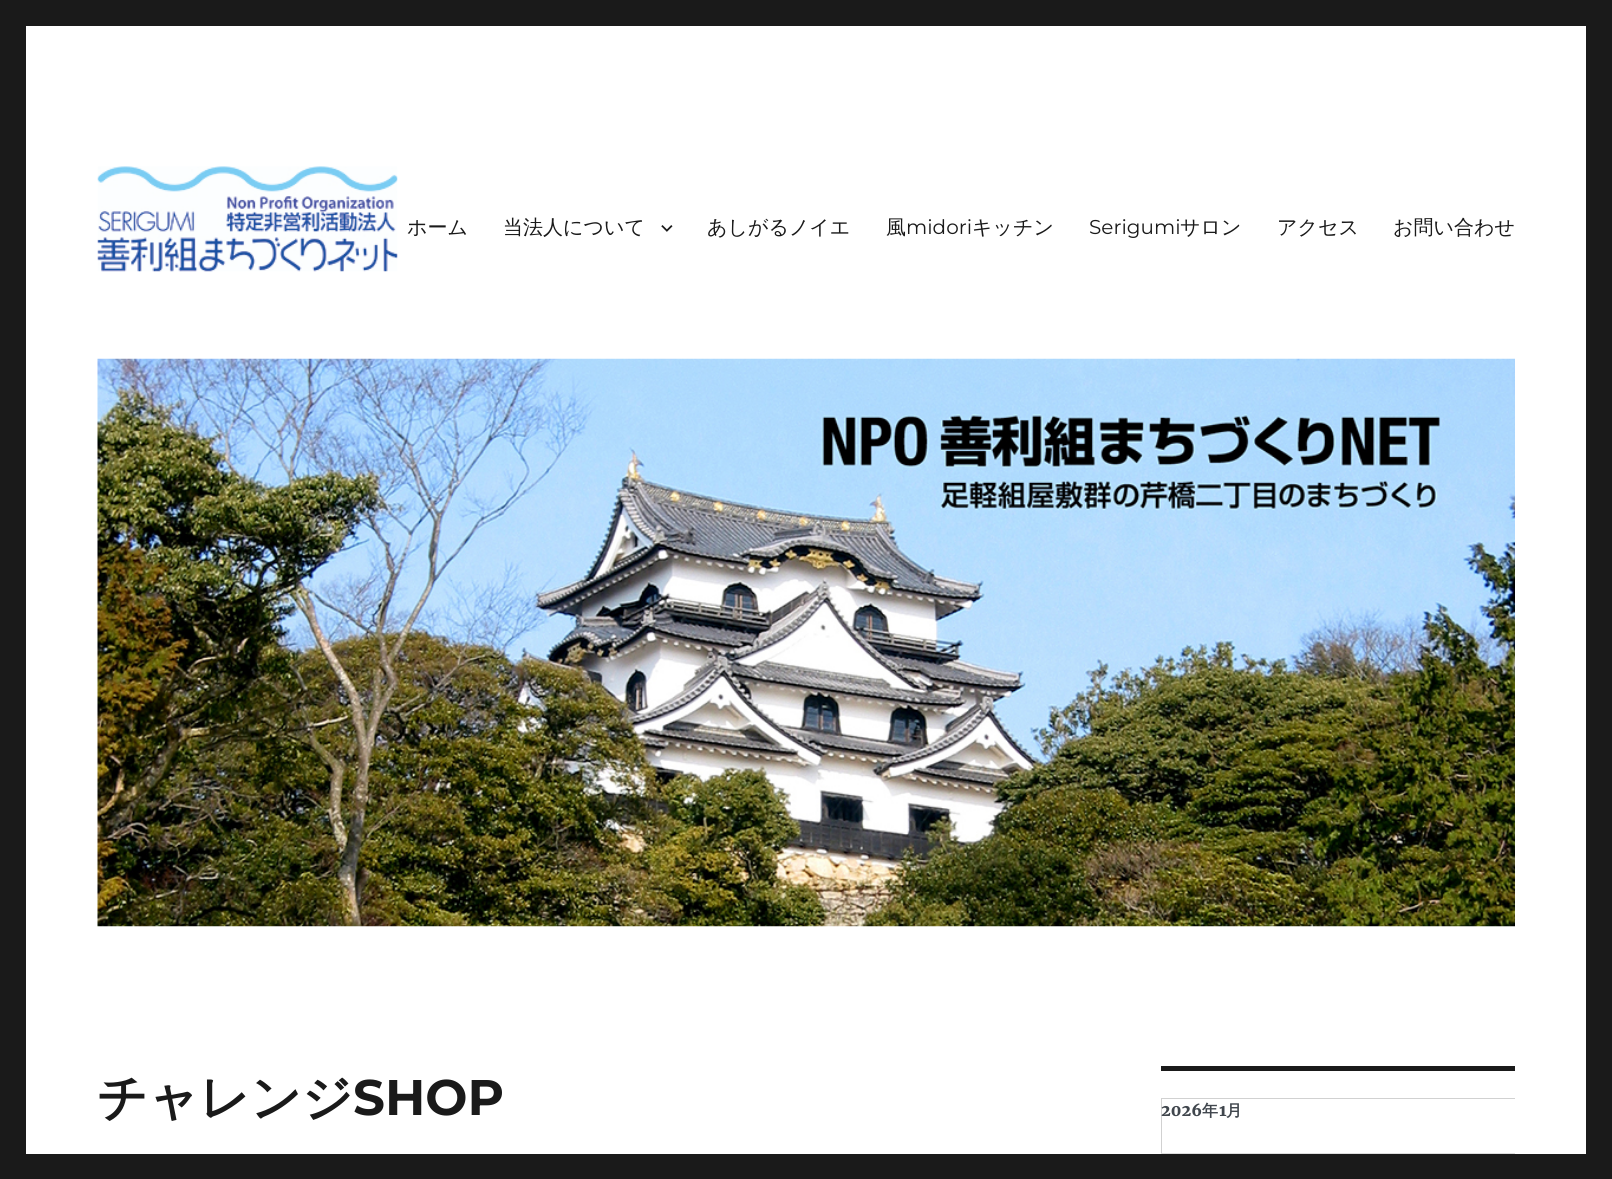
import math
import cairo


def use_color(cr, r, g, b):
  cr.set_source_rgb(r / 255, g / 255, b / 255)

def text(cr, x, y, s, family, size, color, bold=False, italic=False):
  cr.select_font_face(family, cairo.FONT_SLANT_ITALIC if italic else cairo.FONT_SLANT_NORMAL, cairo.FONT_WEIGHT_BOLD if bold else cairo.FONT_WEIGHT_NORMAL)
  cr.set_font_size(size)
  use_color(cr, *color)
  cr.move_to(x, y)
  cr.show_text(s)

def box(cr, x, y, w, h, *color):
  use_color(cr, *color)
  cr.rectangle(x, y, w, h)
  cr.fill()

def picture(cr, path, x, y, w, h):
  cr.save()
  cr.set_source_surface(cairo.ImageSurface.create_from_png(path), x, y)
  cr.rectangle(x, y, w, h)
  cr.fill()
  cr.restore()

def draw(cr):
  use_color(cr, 26, 26, 26)
  cr.paint()
  box(cr, 26, 26, 1560, 1128, 255, 255, 255)
  picture(cr, "img_01.png", 97, 166, 301, 106)
  picture(cr, "img_02.png", 661, 225, 12, 7)
  picture(cr, "img_03.png", 97, 358, 1418, 569)
  box(cr, 1161, 1066, 354, 5, 26, 26, 26)
  box(cr, 1161, 1098, 354, 1, 209, 209, 209)
  box(cr, 1161, 1098, 1, 55, 209, 209, 209)
  box(cr, 1161, 1153, 354, 1, 221, 221, 221)
  text(cr, 407, 234, "ホーム", "WenQuanYi Zen Hei Medium", 20, (26, 26, 26))
  text(cr, 503, 234, "当法人について", "WenQuanYi Zen Hei Medium", 20, (26, 26, 26))
  text(cr, 707, 234, "あしがるノイエ", "WenQuanYi Zen Hei Medium", 20, (26, 26, 26))
  text(cr, 886, 234, "風", "WenQuanYi Zen Hei Medium", 20, (26, 26, 26))
  text(cr, 906, 234, "midori", "Montserrat Thin", 20, (26, 26, 26))
  text(cr, 972, 234, "キッチン", "WenQuanYi Zen Hei Medium", 20, (26, 26, 26))
  text(cr, 1089, 234, "Serigumi", "Montserrat Thin", 20, (26, 26, 26))
  text(cr, 1180, 234, "サロン", "WenQuanYi Zen Hei Medium", 20, (26, 26, 26))
  text(cr, 1277, 234, "アクセス", "WenQuanYi Zen Hei Medium", 20, (26, 26, 26))
  text(cr, 1393, 234, "お問い合わせ", "WenQuanYi Zen Hei Medium", 20, (26, 26, 26))
  text(cr, 97, 1115, "チャレンジ", "WenQuanYi Zen Hei", 50, (26, 26, 26), bold=True)
  text(cr, 353, 1115, "SHOP", "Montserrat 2 Thin", 50, (26, 26, 26))
  text(cr, 1161, 1116, "2026", "Merriweather Black", 16, (64, 70, 77))
  text(cr, 1202, 1116, "年", "WenQuanYi Zen Hei", 16, (64, 70, 77), bold=True)
  text(cr, 1219, 1116, "1", "Merriweather Black", 16, (64, 70, 77))
  text(cr, 1226, 1116, "月", "WenQuanYi Zen Hei", 16, (64, 70, 77), bold=True)


surface = cairo.ImageSurface(cairo.FORMAT_RGB24, 1612, 1179)
cr = cairo.Context(surface)
options = cairo.FontOptions()
options.set_hint_metrics(cairo.HINT_METRICS_OFF)
options.set_hint_style(cairo.HINT_STYLE_NONE)
cr.set_font_options(options)
cr.set_miter_limit(4)
draw(cr)
surface.write_to_png("out.png")
